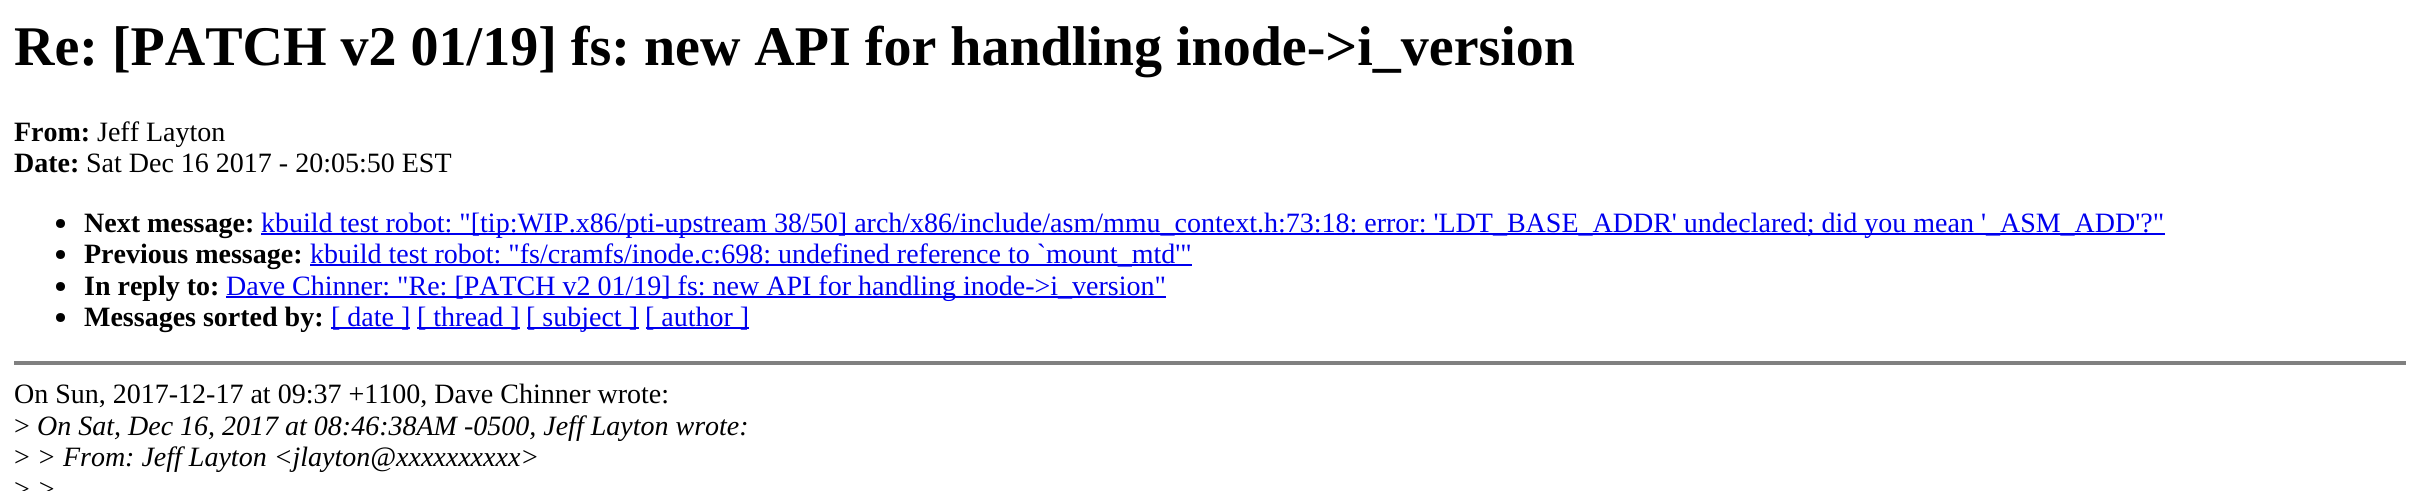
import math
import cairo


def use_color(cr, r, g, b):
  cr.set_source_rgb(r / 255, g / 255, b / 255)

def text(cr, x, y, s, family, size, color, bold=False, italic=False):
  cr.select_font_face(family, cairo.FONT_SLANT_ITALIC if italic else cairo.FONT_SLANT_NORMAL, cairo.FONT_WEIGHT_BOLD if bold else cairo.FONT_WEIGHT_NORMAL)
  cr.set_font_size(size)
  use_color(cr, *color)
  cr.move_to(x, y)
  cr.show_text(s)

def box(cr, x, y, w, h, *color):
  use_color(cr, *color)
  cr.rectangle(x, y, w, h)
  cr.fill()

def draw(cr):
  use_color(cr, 255, 255, 255)
  cr.paint()
  use_color(cr, 0, 0, 0)
  cr.arc(60.5, 223.5, 4.5, 0, 2 * math.pi)
  cr.fill()
  box(cr, 261, 233, 1904, 2, 0, 0, 238)
  use_color(cr, 0, 0, 0)
  cr.arc(60.5, 254.5, 4.5, 0, 2 * math.pi)
  cr.fill()
  box(cr, 310, 264, 882, 2, 0, 0, 238)
  use_color(cr, 0, 0, 0)
  cr.arc(60.5, 286.5, 4.5, 0, 2 * math.pi)
  cr.fill()
  box(cr, 226, 296, 940, 2, 0, 0, 238)
  use_color(cr, 0, 0, 0)
  cr.arc(60.5, 317.5, 4.5, 0, 2 * math.pi)
  cr.fill()
  box(cr, 331, 327, 79, 2, 0, 0, 238)
  box(cr, 417, 327, 103, 2, 0, 0, 238)
  box(cr, 527, 327, 112, 2, 0, 0, 238)
  box(cr, 646, 327, 103, 2, 0, 0, 238)
  box(cr, 14, 361, 2392, 4, 128, 128, 128)
  text(cr, 14, 65, "Re: [PATCH v2 01/19] fs: new API for handling inode->i_version", "Liberation Serif", 56, (0, 0, 0), bold=True)
  text(cr, 14, 141, "From:", "Liberation Serif", 28, (0, 0, 0), bold=True)
  text(cr, 97, 141, "Jeff Layton", "Liberation Serif", 28, (0, 0, 0))
  text(cr, 14, 172, "Date:", "Liberation Serif", 28, (0, 0, 0), bold=True)
  text(cr, 86, 172, "Sat Dec 16 2017 - 20:05:50 EST", "Liberation Serif", 28, (0, 0, 0))
  text(cr, 84, 232, "Next message:", "Liberation Serif", 28, (0, 0, 0), bold=True)
  text(cr, 261, 232, "kbuild test robot: \"[tip:WIP.x86/pti-upstream 38/50] arch/x86/include/asm/mmu_context.h:73:18: error: 'LDT_BASE_ADDR' undeclared; did you mean '_ASM_ADD'?\"", "Liberation Serif", 28, (0, 0, 238))
  text(cr, 84, 263, "Previous message:", "Liberation Serif", 28, (0, 0, 0), bold=True)
  text(cr, 310, 263, "kbuild test robot: \"fs/cramfs/inode.c:698: undefined reference to `mount_mtd'\"", "Liberation Serif", 28, (0, 0, 238))
  text(cr, 84, 295, "In reply to:", "Liberation Serif", 28, (0, 0, 0), bold=True)
  text(cr, 226, 295, "Dave Chinner: \"Re: [PATCH v2 01/19] fs: new API for handling inode->i_version\"", "Liberation Serif", 28, (0, 0, 238))
  text(cr, 84, 326, "Messages sorted by:", "Liberation Serif", 28, (0, 0, 0), bold=True)
  text(cr, 331, 326, "[ date ]", "Liberation Serif", 28, (0, 0, 238))
  text(cr, 417, 326, "[ thread ]", "Liberation Serif", 28, (0, 0, 238))
  text(cr, 526, 326, "[ subject ]", "Liberation Serif", 28, (0, 0, 238))
  text(cr, 645, 326, "[ author ]", "Liberation Serif", 28, (0, 0, 238))
  text(cr, 14, 403, "On Sun, 2017-12-17 at 09:37 +1100, Dave Chinner wrote:", "Liberation Serif", 28, (0, 0, 0))
  text(cr, 14, 435, ">", "Liberation Serif", 28, (0, 0, 0))
  text(cr, 37, 435, "On Sat, Dec 16, 2017 at 08:46:38AM -0500, Jeff Layton wrote:", "Liberation Serif", 28, (0, 0, 0), italic=True)
  text(cr, 14, 466, ">", "Liberation Serif", 28, (0, 0, 0))
  text(cr, 37, 466, "> From: Jeff Layton <jlayton@xxxxxxxxxx>", "Liberation Serif", 28, (0, 0, 0), italic=True)
  text(cr, 14, 498, ">", "Liberation Serif", 28, (0, 0, 0))
  text(cr, 37, 498, ">", "Liberation Serif", 28, (0, 0, 0), italic=True)


surface = cairo.ImageSurface(cairo.FORMAT_RGB24, 2419, 491)
cr = cairo.Context(surface)
options = cairo.FontOptions()
options.set_hint_metrics(cairo.HINT_METRICS_OFF)
options.set_hint_style(cairo.HINT_STYLE_NONE)
cr.set_font_options(options)
cr.set_miter_limit(4)
draw(cr)
surface.write_to_png("out.png")
